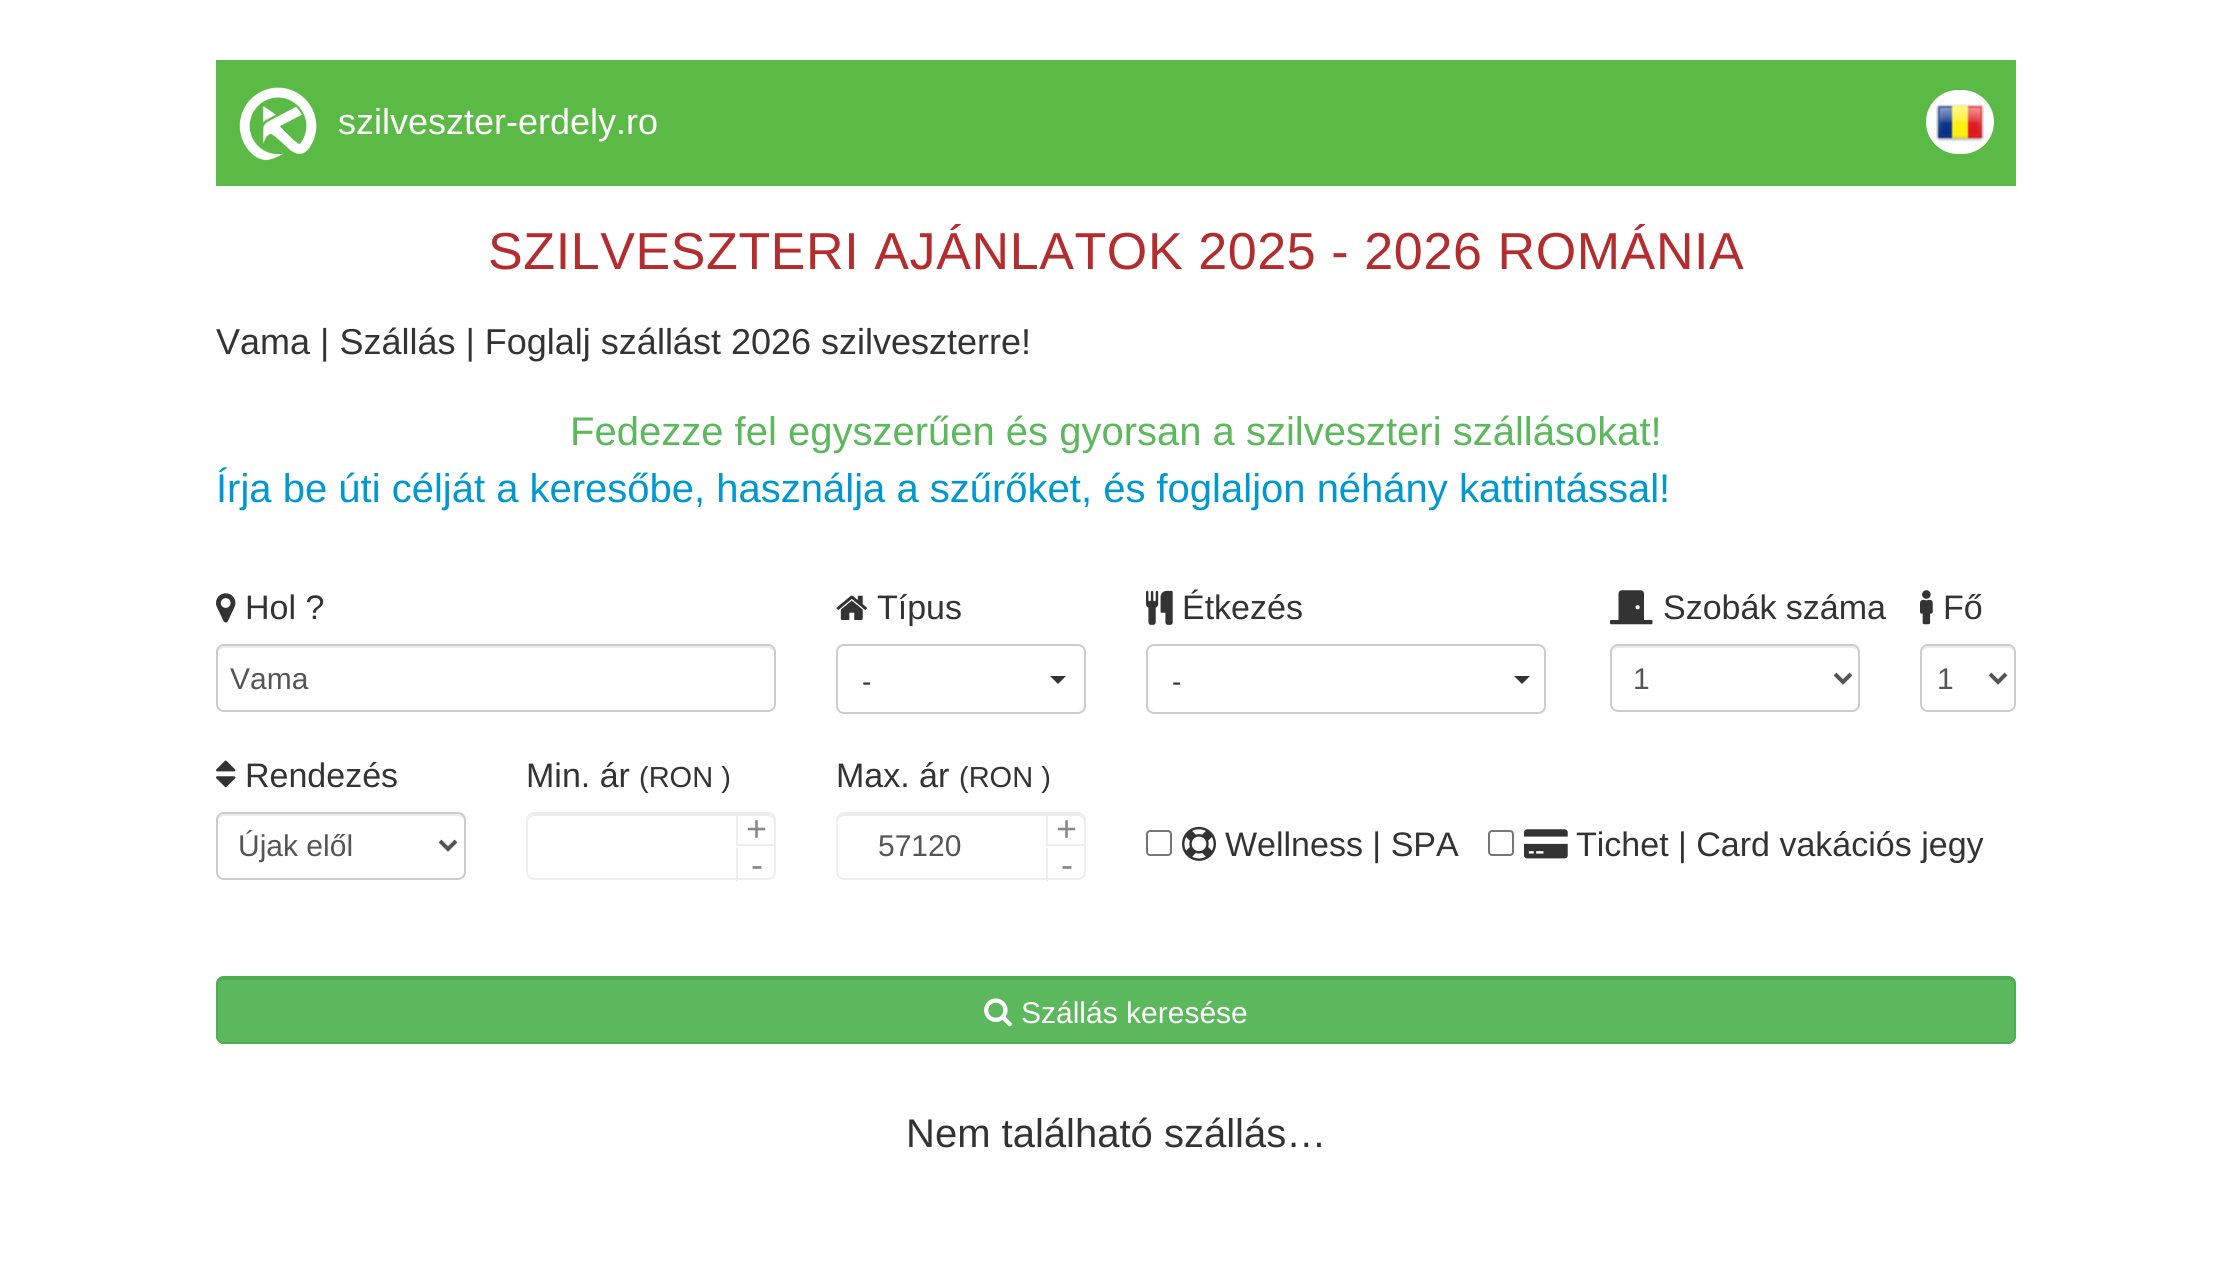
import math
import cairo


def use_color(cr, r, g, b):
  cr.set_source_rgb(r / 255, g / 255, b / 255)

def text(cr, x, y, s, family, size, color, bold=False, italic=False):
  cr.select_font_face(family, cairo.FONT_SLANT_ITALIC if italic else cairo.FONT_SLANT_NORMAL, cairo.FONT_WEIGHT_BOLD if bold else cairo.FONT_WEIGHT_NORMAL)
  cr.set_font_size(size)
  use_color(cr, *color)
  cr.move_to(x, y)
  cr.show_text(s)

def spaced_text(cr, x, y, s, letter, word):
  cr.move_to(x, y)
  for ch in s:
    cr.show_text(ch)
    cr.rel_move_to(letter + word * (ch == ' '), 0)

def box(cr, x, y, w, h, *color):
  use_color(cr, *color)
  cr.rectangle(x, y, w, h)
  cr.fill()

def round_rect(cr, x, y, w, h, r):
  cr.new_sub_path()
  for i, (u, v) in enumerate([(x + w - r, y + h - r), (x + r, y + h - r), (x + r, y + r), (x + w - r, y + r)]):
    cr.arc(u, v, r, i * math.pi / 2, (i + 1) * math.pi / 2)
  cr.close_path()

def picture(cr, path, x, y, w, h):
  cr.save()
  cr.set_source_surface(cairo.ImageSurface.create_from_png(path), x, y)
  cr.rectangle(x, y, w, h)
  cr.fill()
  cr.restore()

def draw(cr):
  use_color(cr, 255, 255, 255)
  cr.paint()
  box(cr, 216, 60, 1800, 126, 91, 186, 70)
  picture(cr, "img_01.png", 239, 87, 78, 74)
  use_color(cr, 255, 255, 255)
  round_rect(cr, 1926, 90, 68, 64, 32)
  cr.fill()
  picture(cr, "img_02.png", 1936, 104, 48, 38)
  picture(cr, "img_03.png", 216, 593, 20, 30)
  use_color(cr, 236, 236, 236)
  cr.new_path()
  cr.move_to(224, 648)
  cr.line_to(768, 648)
  cr.curve_to(771, 648, 774, 651, 774, 654)
  cr.line_to(774, 652)
  cr.curve_to(774, 649, 771, 646, 768, 646)
  cr.line_to(224, 646)
  cr.curve_to(221, 646, 218, 649, 218, 652)
  cr.line_to(218, 654)
  cr.curve_to(218, 651, 221, 648, 224, 648)
  cr.close_path()
  cr.fill()
  round_rect(cr, 217, 645, 558, 66, 7)
  use_color(cr, 204, 204, 204)
  cr.stroke()
  picture(cr, "img_04.png", 836, 595, 31, 25)
  round_rect(cr, 837, 645, 248, 68, 7)
  cr.stroke()
  use_color(cr, 51, 51, 51)
  cr.new_path()
  cr.move_to(1050, 676)
  cr.line_to(1066, 676)
  cr.line_to(1058, 684)
  cr.close_path()
  cr.fill()
  picture(cr, "img_05.png", 1146, 590, 27, 35)
  round_rect(cr, 1147, 645, 398, 68, 7)
  use_color(cr, 204, 204, 204)
  cr.stroke()
  use_color(cr, 51, 51, 51)
  cr.new_path()
  cr.move_to(1514, 676)
  cr.line_to(1530, 676)
  cr.line_to(1522, 684)
  cr.close_path()
  cr.fill()
  picture(cr, "img_06.png", 1610, 590, 43, 35)
  use_color(cr, 236, 236, 236)
  cr.new_path()
  cr.move_to(1618, 648)
  cr.line_to(1852, 648)
  cr.curve_to(1855, 648, 1858, 651, 1858, 654)
  cr.line_to(1858, 652)
  cr.curve_to(1858, 649, 1855, 646, 1852, 646)
  cr.line_to(1618, 646)
  cr.curve_to(1615, 646, 1612, 649, 1612, 652)
  cr.line_to(1612, 654)
  cr.curve_to(1612, 651, 1615, 648, 1618, 648)
  cr.close_path()
  cr.fill()
  round_rect(cr, 1611, 645, 248, 66, 7)
  use_color(cr, 204, 204, 204)
  cr.stroke()
  cr.new_path()
  cr.move_to(1835, 674)
  cr.line_to(1843, 682)
  cr.line_to(1851, 674)
  use_color(cr, 85, 85, 85)
  cr.set_line_width(4)
  cr.stroke()
  picture(cr, "img_07.png", 1920, 590, 13, 35)
  use_color(cr, 236, 236, 236)
  cr.new_path()
  cr.move_to(1928, 648)
  cr.line_to(2008, 648)
  cr.curve_to(2011, 648, 2014, 651, 2014, 654)
  cr.curve_to(2014, 643, 2004, 646, 1995, 646)
  cr.line_to(1941, 646)
  cr.curve_to(1932, 646, 1922, 643, 1922, 654)
  cr.curve_to(1922, 651, 1925, 648, 1928, 648)
  cr.close_path()
  cr.fill()
  round_rect(cr, 1921, 645, 94, 66, 7)
  use_color(cr, 204, 204, 204)
  cr.set_line_width(2)
  cr.stroke()
  cr.new_path()
  cr.move_to(1990, 674)
  cr.line_to(1998, 682)
  cr.line_to(2006, 674)
  use_color(cr, 85, 85, 85)
  cr.set_line_width(4)
  cr.stroke()
  picture(cr, "img_08.png", 216, 760, 20, 28)
  use_color(cr, 236, 236, 236)
  cr.new_path()
  cr.move_to(224, 816)
  cr.line_to(458, 816)
  cr.curve_to(461, 816, 464, 819, 464, 822)
  cr.line_to(464, 820)
  cr.curve_to(464, 817, 461, 814, 458, 814)
  cr.line_to(224, 814)
  cr.curve_to(221, 814, 218, 817, 218, 820)
  cr.line_to(218, 822)
  cr.curve_to(218, 819, 221, 816, 224, 816)
  cr.close_path()
  cr.fill()
  round_rect(cr, 217, 813, 248, 66, 7)
  use_color(cr, 204, 204, 204)
  cr.set_line_width(2)
  cr.stroke()
  cr.new_path()
  cr.move_to(440, 841)
  cr.line_to(448, 849)
  cr.line_to(456, 841)
  use_color(cr, 85, 85, 85)
  cr.set_line_width(4)
  cr.stroke()
  use_color(cr, 236, 236, 236)
  cr.new_path()
  cr.move_to(534, 816)
  cr.line_to(768, 816)
  cr.curve_to(771, 816, 774, 819, 774, 822)
  cr.line_to(774, 820)
  cr.curve_to(774, 817, 771, 814, 768, 814)
  cr.line_to(534, 814)
  cr.curve_to(531, 814, 528, 817, 528, 820)
  cr.line_to(528, 822)
  cr.curve_to(528, 819, 531, 816, 534, 816)
  cr.close_path()
  cr.fill()
  round_rect(cr, 527, 813, 248, 66, 7)
  use_color(cr, 238, 238, 238)
  cr.set_line_width(2)
  cr.stroke()
  box(cr, 736, 844, 40, 2, 238, 238, 238)
  box(cr, 736, 812, 2, 34, 238, 238, 238)
  box(cr, 736, 848, 2, 34, 238, 238, 238)
  use_color(cr, 236, 236, 236)
  cr.new_path()
  cr.move_to(844, 816)
  cr.line_to(1078, 816)
  cr.curve_to(1081, 816, 1084, 819, 1084, 822)
  cr.line_to(1084, 820)
  cr.curve_to(1084, 817, 1081, 814, 1078, 814)
  cr.line_to(844, 814)
  cr.curve_to(841, 814, 838, 817, 838, 820)
  cr.line_to(838, 822)
  cr.curve_to(838, 819, 841, 816, 844, 816)
  cr.close_path()
  cr.fill()
  round_rect(cr, 837, 813, 248, 66, 7)
  use_color(cr, 238, 238, 238)
  cr.stroke()
  box(cr, 1046, 844, 40, 2, 238, 238, 238)
  box(cr, 1046, 812, 2, 34, 238, 238, 238)
  box(cr, 1046, 848, 2, 34, 238, 238, 238)
  round_rect(cr, 1147, 831, 24, 24, 3)
  use_color(cr, 118, 118, 118)
  cr.stroke()
  picture(cr, "img_09.png", 1182, 826, 34, 35)
  round_rect(cr, 1489, 831, 24, 24, 3)
  cr.stroke()
  picture(cr, "img_10.png", 1524, 829, 44, 30)
  use_color(cr, 92, 184, 92)
  round_rect(cr, 216, 976, 1800, 68, 8)
  cr.fill()
  use_color(cr, 85, 170, 85)
  cr.new_path()
  cr.move_to(224, 980)
  cr.line_to(2008, 980)
  cr.curve_to(2011, 980, 2014, 983, 2014, 986)
  cr.curve_to(2014, 982, 2013, 978, 2008, 978)
  cr.line_to(224, 978)
  cr.curve_to(219, 978, 218, 982, 218, 986)
  cr.curve_to(218, 983, 221, 980, 224, 980)
  cr.close_path()
  cr.fill()
  round_rect(cr, 217, 977, 1798, 66, 7)
  use_color(cr, 76, 174, 76)
  cr.stroke()
  picture(cr, "img_11.png", 984, 998, 28, 29)
  text(cr, 338, 134, "szilveszter-erdely.ro", "Liberation Sans", 36, (255, 255, 255))
  cr.set_font_size(52)
  use_color(cr, 179, 45, 47)
  spaced_text(cr, 488, 269, "SZILVESZTERI AJÁNLATOK 2025 - 2026 ROMÁNIA", 0.6, 0)
  text(cr, 216, 354, "Vama | Szállás | Foglalj szállást 2026 szilveszterre!", "Liberation Sans", 36, (51, 51, 51))
  text(cr, 570, 445, "Fedezze fel egyszerűen és gyorsan a szilveszteri szállásokat!", "Liberation Sans", 40, (92, 184, 92))
  text(cr, 216, 502, "Írja be úti célját a keresőbe, használja a szűrőket, és foglaljon néhány kattintással!", "Liberation Sans", 40, (0, 152, 208))
  text(cr, 245, 619, "Hol ?", "Liberation Sans", 34, (51, 51, 51))
  text(cr, 230, 689, "Vama", "Liberation Sans", 30, (85, 85, 85))
  text(cr, 877, 619, "Típus", "Liberation Sans", 34, (51, 51, 51))
  text(cr, 862, 691, "-", "Liberation Sans", 28, (51, 51, 51))
  text(cr, 1182, 619, "Étkezés", "Liberation Sans", 34, (51, 51, 51))
  text(cr, 1172, 691, "-", "Liberation Sans", 28, (51, 51, 51))
  text(cr, 1663, 619, "Szobák száma", "Liberation Sans", 34, (51, 51, 51))
  text(cr, 1633, 689, "1", "Liberation Sans", 30, (85, 85, 85))
  text(cr, 1943, 619, "Fő", "Liberation Sans", 34, (51, 51, 51))
  text(cr, 1937, 689, "1", "Liberation Sans", 30, (85, 85, 85))
  text(cr, 245, 787, "Rendezés", "Liberation Sans", 34, (51, 51, 51))
  text(cr, 238, 856, "Újak elől", "Liberation Sans", 30, (85, 85, 85))
  text(cr, 526, 787, "Min. ár", "Liberation Sans", 34, (51, 51, 51))
  text(cr, 639, 787, "(RON )", "Liberation Sans", 29, (51, 51, 51))
  text(cr, 746, 841, "+", "Liberation Sans", 36, (136, 136, 136))
  text(cr, 751, 877, "-", "Liberation Sans", 36, (136, 136, 136))
  text(cr, 836, 787, "Max. ár", "Liberation Sans", 34, (51, 51, 51))
  text(cr, 959, 787, "(RON )", "Liberation Sans", 29, (51, 51, 51))
  text(cr, 878, 856, "57120", "Liberation Sans", 30, (85, 85, 85))
  text(cr, 1056, 841, "+", "Liberation Sans", 36, (136, 136, 136))
  text(cr, 1061, 877, "-", "Liberation Sans", 36, (136, 136, 136))
  text(cr, 1225, 856, "Wellness | SPA", "Liberation Sans", 34, (51, 51, 51))
  text(cr, 1576, 856, "Tichet | Card vakációs jegy", "Liberation Sans", 34, (51, 51, 51))
  text(cr, 1021, 1023, "Szállás keresése", "Liberation Sans", 30, (255, 255, 255))
  text(cr, 906, 1147, "Nem található szállás…", "Liberation Sans", 40, (51, 51, 51))


surface = cairo.ImageSurface(cairo.FORMAT_RGB24, 2232, 1281)
cr = cairo.Context(surface)
options = cairo.FontOptions()
options.set_hint_metrics(cairo.HINT_METRICS_OFF)
options.set_hint_style(cairo.HINT_STYLE_NONE)
cr.set_font_options(options)
cr.set_miter_limit(4)
draw(cr)
surface.write_to_png("out.png")
